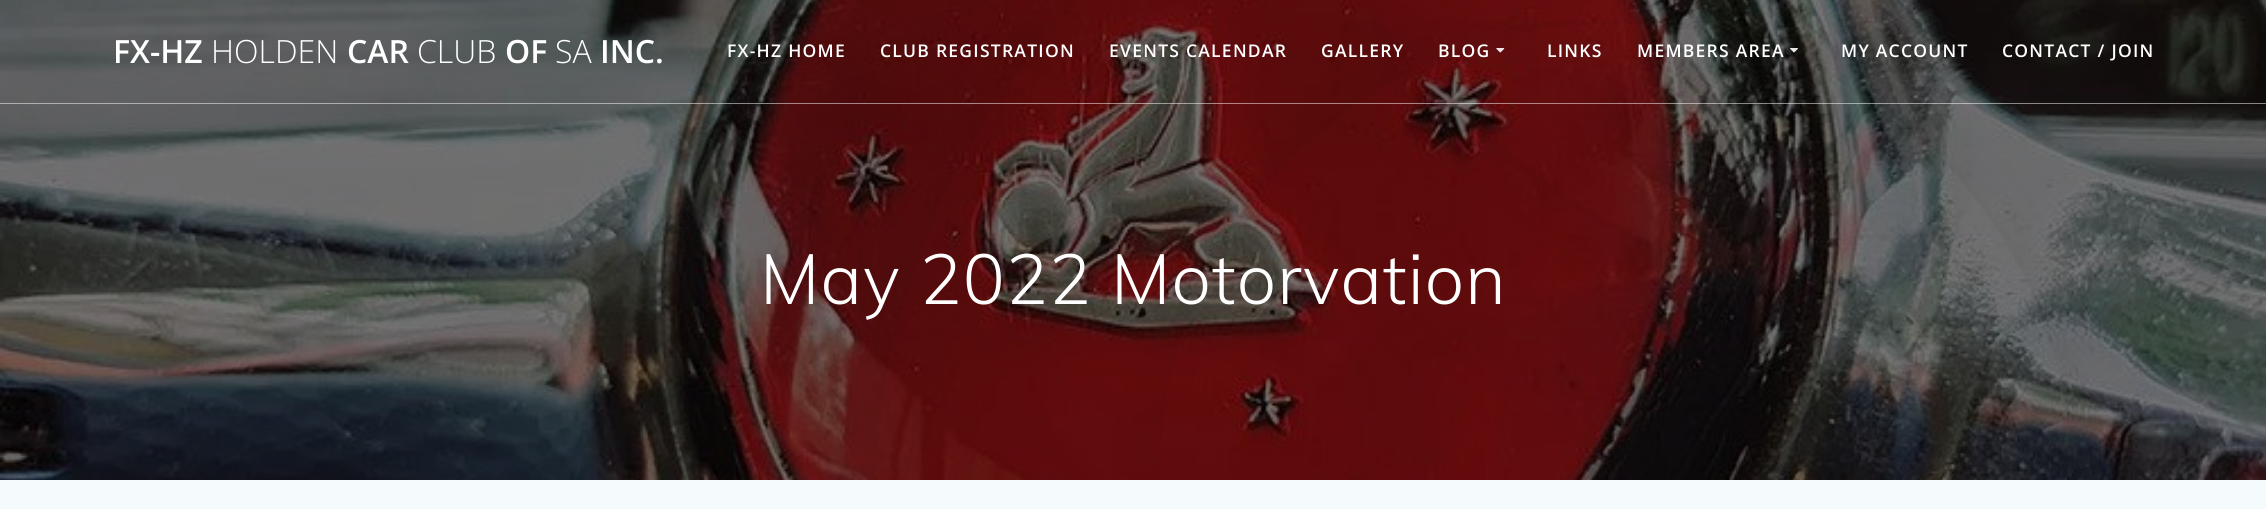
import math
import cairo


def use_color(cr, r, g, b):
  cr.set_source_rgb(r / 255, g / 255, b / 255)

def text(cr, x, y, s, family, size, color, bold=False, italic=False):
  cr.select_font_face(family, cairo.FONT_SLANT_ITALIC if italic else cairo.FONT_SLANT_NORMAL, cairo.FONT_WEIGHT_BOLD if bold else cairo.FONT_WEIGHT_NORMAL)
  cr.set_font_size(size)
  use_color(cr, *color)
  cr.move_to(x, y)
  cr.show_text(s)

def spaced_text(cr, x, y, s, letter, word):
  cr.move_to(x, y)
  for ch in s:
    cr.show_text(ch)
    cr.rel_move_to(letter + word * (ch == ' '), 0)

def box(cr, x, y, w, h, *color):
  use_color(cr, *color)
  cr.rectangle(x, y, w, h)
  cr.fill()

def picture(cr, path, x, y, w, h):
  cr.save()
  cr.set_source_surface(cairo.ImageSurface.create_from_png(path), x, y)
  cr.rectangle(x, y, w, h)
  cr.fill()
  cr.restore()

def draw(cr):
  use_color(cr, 255, 255, 255)
  cr.paint()
  picture(cr, "img_03.png", 0, 0, 2266, 480)
  picture(cr, "img_04.png", 836, 21, 1381, 459)
  cr.set_source_rgba(1, 1, 1, 0.5)
  cr.rectangle(0, 103, 2266, 1)
  cr.fill()
  picture(cr, "img_01.png", 1496, 48, 9, 5)
  picture(cr, "img_02.png", 1790, 48, 8, 5)
  box(cr, 0, 480, 2266, 29, 245, 250, 253)
  text(cr, 113, 63, "FX-HZ", "Open Sans SemiBold", 32, (255, 255, 255))
  text(cr, 211, 63, "HOLDEN", "Open Sans Light", 32, (255, 255, 255))
  text(cr, 347, 63, "CAR", "Open Sans SemiBold", 32, (255, 255, 255))
  text(cr, 417, 63, "CLUB", "Open Sans Light", 32, (255, 255, 255))
  text(cr, 505, 63, "OF", "Open Sans SemiBold", 32, (255, 255, 255))
  text(cr, 555, 63, "SA", "Open Sans Light", 32, (255, 255, 255))
  text(cr, 600, 63, "INC.", "Open Sans SemiBold", 32, (255, 255, 255))
  cr.set_font_size(17.5)
  spaced_text(cr, 727, 57, "FX-HZ HOME", 1.25, 0)
  spaced_text(cr, 880, 57, "CLUB REGISTRATION", 1.25, 0)
  spaced_text(cr, 1109, 57, "EVENTS CALENDAR", 1.25, 0)
  spaced_text(cr, 1321, 57, "GALLERY", 1.25, 0)
  spaced_text(cr, 1438, 57, "BLOG", 1.25, 0)
  spaced_text(cr, 1547, 57, "LINKS", 1.25, 0)
  spaced_text(cr, 1637, 57, "MEMBERS AREA", 1.25, 0)
  spaced_text(cr, 1841, 57, "MY ACCOUNT", 1.25, 0)
  spaced_text(cr, 2002, 57, "CONTACT / JOIN", 1.25, 0)
  cr.select_font_face("Muli Light")
  cr.set_font_size(70)
  spaced_text(cr, 760, 304, "May 2022 Motorvation", 1.1, 0)


surface = cairo.ImageSurface(cairo.FORMAT_RGB24, 2266, 509)
cr = cairo.Context(surface)
options = cairo.FontOptions()
options.set_hint_metrics(cairo.HINT_METRICS_OFF)
options.set_hint_style(cairo.HINT_STYLE_NONE)
cr.set_font_options(options)
cr.set_miter_limit(4)
draw(cr)
surface.write_to_png("out.png")
